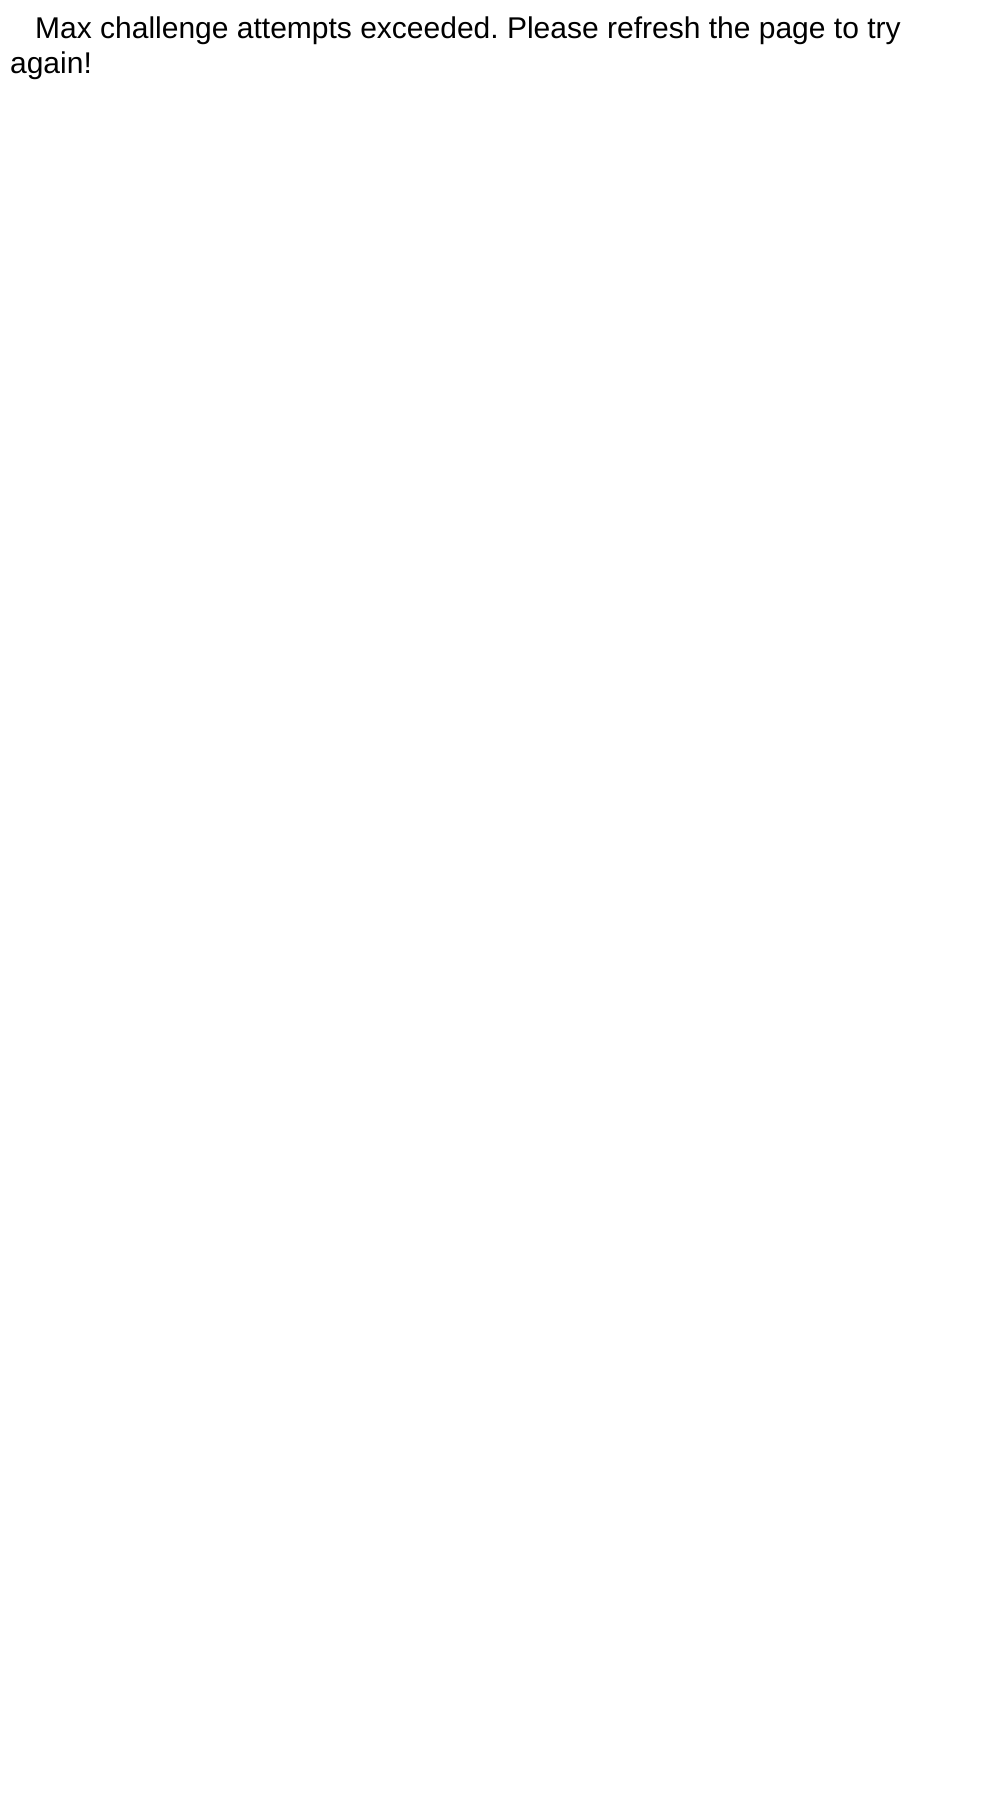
import math
import cairo


def use_color(cr, r, g, b):
  cr.set_source_rgb(r / 255, g / 255, b / 255)

def text(cr, x, y, s, family, size, color, bold=False, italic=False):
  cr.select_font_face(family, cairo.FONT_SLANT_ITALIC if italic else cairo.FONT_SLANT_NORMAL, cairo.FONT_WEIGHT_BOLD if bold else cairo.FONT_WEIGHT_NORMAL)
  cr.set_font_size(size)
  use_color(cr, *color)
  cr.move_to(x, y)
  cr.show_text(s)

def draw(cr):
  use_color(cr, 255, 255, 255)
  cr.paint()
  text(cr, 35, 38, "Max challenge attempts exceeded. Please refresh the page to try", "Liberation Sans", 30, (0, 0, 0))
  text(cr, 10, 73, "again!", "Liberation Sans", 30, (0, 0, 0))


surface = cairo.ImageSurface(cairo.FORMAT_RGB24, 1006, 1813)
cr = cairo.Context(surface)
options = cairo.FontOptions()
options.set_hint_metrics(cairo.HINT_METRICS_OFF)
options.set_hint_style(cairo.HINT_STYLE_NONE)
cr.set_font_options(options)
cr.set_miter_limit(4)
draw(cr)
surface.write_to_png("out.png")
